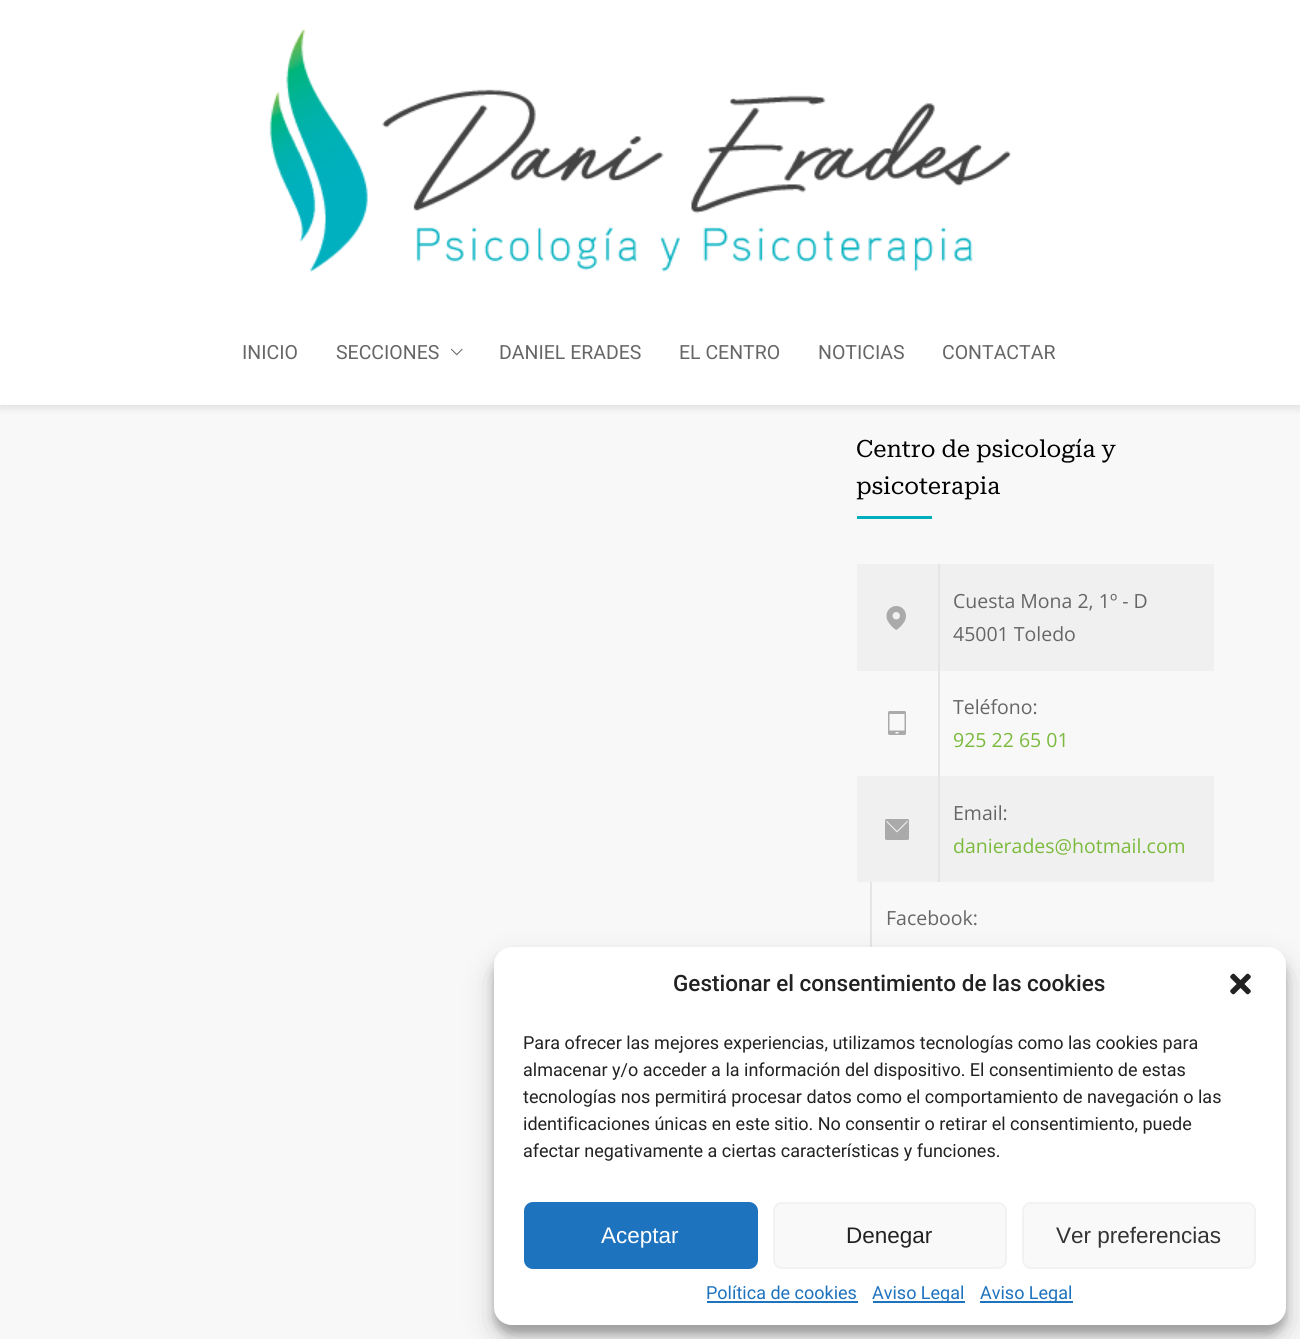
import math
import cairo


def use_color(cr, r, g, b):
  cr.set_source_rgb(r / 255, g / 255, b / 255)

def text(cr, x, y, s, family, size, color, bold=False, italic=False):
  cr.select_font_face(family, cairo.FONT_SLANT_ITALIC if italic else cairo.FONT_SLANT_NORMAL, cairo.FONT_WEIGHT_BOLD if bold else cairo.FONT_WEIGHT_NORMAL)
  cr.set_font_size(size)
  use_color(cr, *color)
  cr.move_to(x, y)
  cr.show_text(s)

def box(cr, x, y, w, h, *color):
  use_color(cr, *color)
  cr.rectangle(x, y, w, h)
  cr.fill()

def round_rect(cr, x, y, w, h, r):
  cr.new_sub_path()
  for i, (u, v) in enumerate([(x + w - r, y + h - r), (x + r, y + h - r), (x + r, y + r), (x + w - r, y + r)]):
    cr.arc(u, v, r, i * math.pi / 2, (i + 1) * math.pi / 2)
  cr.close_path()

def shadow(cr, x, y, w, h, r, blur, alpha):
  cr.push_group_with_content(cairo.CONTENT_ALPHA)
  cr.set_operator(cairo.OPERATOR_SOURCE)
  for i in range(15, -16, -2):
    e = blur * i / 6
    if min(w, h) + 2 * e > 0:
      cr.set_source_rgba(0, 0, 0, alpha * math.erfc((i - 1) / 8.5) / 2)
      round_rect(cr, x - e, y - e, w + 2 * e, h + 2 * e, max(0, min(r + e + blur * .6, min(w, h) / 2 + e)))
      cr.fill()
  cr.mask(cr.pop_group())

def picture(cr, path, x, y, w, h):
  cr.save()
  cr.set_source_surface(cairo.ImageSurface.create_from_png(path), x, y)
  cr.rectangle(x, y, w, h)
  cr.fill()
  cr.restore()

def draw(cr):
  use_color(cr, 248, 248, 248)
  cr.paint()
  use_color(cr, 0, 0, 0)
  shadow(cr, 0, 3, 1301, 405, 0, 4, 0.1)
  box(cr, 0, 0, 1300, 405, 255, 255, 255)
  picture(cr, "img_01.png", 269, 29, 743, 243)
  picture(cr, "img_02.png", 450, 348, 13, 8)
  box(cr, 857, 516, 75, 3, 0, 174, 189)
  box(cr, 857, 564, 357, 107, 240, 240, 240)
  box(cr, 938, 564, 2, 212, 229, 229, 229)
  picture(cr, "img_03.png", 886, 606, 20, 24)
  picture(cr, "img_04.png", 888, 711, 18, 24)
  box(cr, 857, 776, 357, 106, 240, 240, 240)
  box(cr, 938, 776, 2, 106, 229, 229, 229)
  picture(cr, "img_05.png", 885, 819, 24, 21)
  box(cr, 870, 882, 2, 65, 229, 229, 229)
  use_color(cr, 0, 0, 0)
  shadow(cr, 494, 956, 792, 378, 18, 4.5, 0.23)
  shadow(cr, 494, 962, 792, 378, 18, 15, 0.19)
  use_color(cr, 255, 255, 255)
  round_rect(cr, 494, 947, 792, 378, 18)
  cr.fill()
  picture(cr, "img_06.png", 1230, 973, 21, 22)
  use_color(cr, 30, 115, 190)
  round_rect(cr, 525, 1203, 232, 65, 8)
  cr.fill_preserve()
  cr.stroke()
  use_color(cr, 249, 249, 249)
  round_rect(cr, 774, 1203, 232, 65, 8)
  cr.fill_preserve()
  use_color(cr, 242, 242, 242)
  cr.stroke()
  use_color(cr, 249, 249, 249)
  round_rect(cr, 1023, 1203, 232, 65, 8)
  cr.fill_preserve()
  use_color(cr, 242, 242, 242)
  cr.stroke()
  box(cr, 707, 1301, 151, 2, 30, 115, 190)
  box(cr, 873, 1301, 92, 2, 30, 115, 190)
  box(cr, 980, 1301, 93, 2, 30, 115, 190)
  text(cr, 242, 359, "INICIO", "Roboto", 19.5, (102, 102, 102))
  text(cr, 336, 359, "SECCIONES", "Roboto", 19.5, (102, 102, 102))
  text(cr, 499, 359, "DANIEL ERADES", "Roboto", 19.5, (102, 102, 102))
  text(cr, 679, 359, "EL CENTRO", "Roboto", 19.5, (102, 102, 102))
  text(cr, 818, 359, "NOTICIAS", "Roboto", 19.5, (102, 102, 102))
  text(cr, 942, 359, "CONTACTAR", "Roboto", 19.5, (102, 102, 102))
  text(cr, 856, 457, "Centro de psicología y", "Roboto Serif", 24, (0, 0, 0))
  text(cr, 856, 494, "psicoterapia", "Roboto Serif", 24, (0, 0, 0))
  text(cr, 953, 608, "Cuesta Mona 2, 1º - D", "Open Sans", 19.5, (102, 102, 102))
  text(cr, 953, 641, "45001 Toledo", "Open Sans", 19.5, (102, 102, 102))
  text(cr, 953, 714, "Teléfono:", "Open Sans", 19.5, (102, 102, 102))
  text(cr, 953, 747, "925 22 65 01", "Open Sans", 19.5, (124, 186, 61))
  text(cr, 953, 820, "Email:", "Open Sans", 19.5, (102, 102, 102))
  text(cr, 953, 853, "danierades@hotmail.com", "Open Sans", 19.5, (124, 186, 61))
  text(cr, 886, 925, "Facebook:", "Open Sans", 19.5, (102, 102, 102))
  text(cr, 673, 991, "Gestionar el consentimiento de las cookies", "Roboto Medium", 22.5, (34, 34, 34))
  text(cr, 523, 1049, "Para ofrecer las mejores experiencias, utilizamos tecnologías como las cookies para", "Roboto", 18, (34, 34, 34))
  text(cr, 523, 1076, "almacenar y/o acceder a la información del dispositivo. El consentimiento de estas", "Roboto", 18, (34, 34, 34))
  text(cr, 523, 1103, "tecnologías nos permitirá procesar datos como el comportamiento de navegación o las", "Roboto", 18, (34, 34, 34))
  text(cr, 523, 1130, "identificaciones únicas en este sitio. No consentir o retirar el consentimiento, puede", "Roboto", 18, (34, 34, 34))
  text(cr, 523, 1157, "afectar negativamente a ciertas características y funciones.", "Roboto", 18, (34, 34, 34))
  text(cr, 601, 1243, "Aceptar", "Liberation Sans", 22.5, (255, 255, 255))
  text(cr, 846, 1243, "Denegar", "Liberation Sans", 22.5, (34, 34, 34))
  text(cr, 1056, 1243, "Ver preferencias", "Liberation Sans", 22.5, (51, 51, 51))
  text(cr, 706, 1299, "Política de cookies", "Roboto", 18, (30, 115, 190))
  text(cr, 872, 1299, "Aviso Legal", "Roboto", 18, (30, 115, 190))
  text(cr, 980, 1299, "Aviso Legal", "Roboto", 18, (30, 115, 190))


surface = cairo.ImageSurface(cairo.FORMAT_RGB24, 1300, 1339)
cr = cairo.Context(surface)
options = cairo.FontOptions()
options.set_hint_metrics(cairo.HINT_METRICS_OFF)
options.set_hint_style(cairo.HINT_STYLE_NONE)
cr.set_font_options(options)
cr.set_miter_limit(4)
draw(cr)
surface.write_to_png("out.png")
